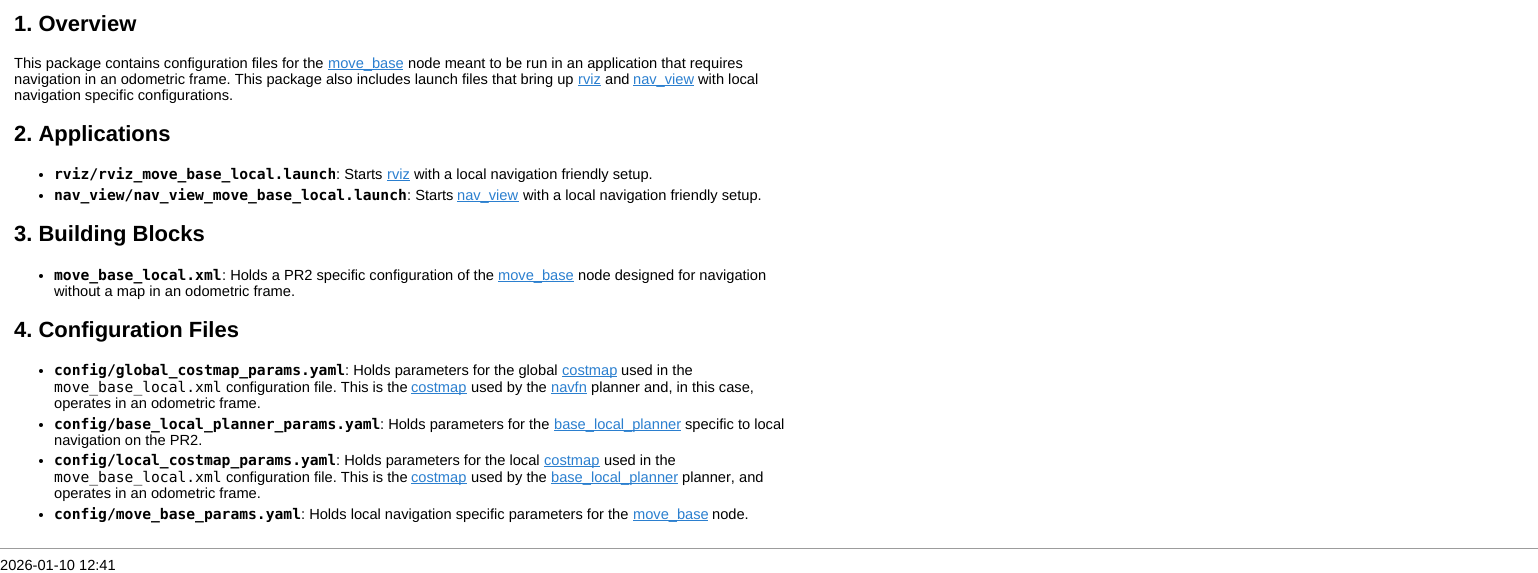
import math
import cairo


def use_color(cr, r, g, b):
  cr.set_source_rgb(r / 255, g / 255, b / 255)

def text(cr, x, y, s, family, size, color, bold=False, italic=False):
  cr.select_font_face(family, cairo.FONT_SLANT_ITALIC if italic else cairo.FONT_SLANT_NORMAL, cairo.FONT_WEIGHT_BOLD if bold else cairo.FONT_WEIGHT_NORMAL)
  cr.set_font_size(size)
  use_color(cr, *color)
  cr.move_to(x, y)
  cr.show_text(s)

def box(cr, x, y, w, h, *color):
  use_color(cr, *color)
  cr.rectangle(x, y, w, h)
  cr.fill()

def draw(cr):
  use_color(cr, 255, 255, 255)
  cr.paint()
  box(cr, 328, 69, 75, 1, 43, 127, 207)
  box(cr, 578, 85, 23, 1, 43, 127, 207)
  box(cr, 633, 85, 61, 1, 43, 127, 207)
  use_color(cr, 0, 0, 0)
  cr.arc(41, 175, 2, 0, 2 * math.pi)
  cr.fill()
  box(cr, 387, 180, 23, 1, 43, 127, 207)
  use_color(cr, 0, 0, 0)
  cr.arc(41, 196, 2, 0, 2 * math.pi)
  cr.fill()
  box(cr, 457, 201, 62, 1, 43, 127, 207)
  use_color(cr, 0, 0, 0)
  cr.arc(41, 276, 2, 0, 2 * math.pi)
  cr.fill()
  box(cr, 498, 281, 76, 1, 43, 127, 207)
  use_color(cr, 0, 0, 0)
  cr.arc(41, 371, 2, 0, 2 * math.pi)
  cr.fill()
  box(cr, 562, 376, 55, 1, 43, 127, 207)
  box(cr, 411, 393, 56, 1, 43, 127, 207)
  box(cr, 551, 393, 36, 1, 43, 127, 207)
  use_color(cr, 0, 0, 0)
  cr.arc(41, 425, 2, 0, 2 * math.pi)
  cr.fill()
  box(cr, 554, 430, 127, 1, 43, 127, 207)
  use_color(cr, 0, 0, 0)
  cr.arc(41, 461, 2, 0, 2 * math.pi)
  cr.fill()
  box(cr, 544, 466, 56, 1, 43, 127, 207)
  box(cr, 411, 483, 56, 1, 43, 127, 207)
  box(cr, 551, 483, 127, 1, 43, 127, 207)
  use_color(cr, 0, 0, 0)
  cr.arc(41, 515, 2, 0, 2 * math.pi)
  cr.fill()
  box(cr, 633, 520, 75, 1, 43, 127, 207)
  box(cr, 0, 548, 1538, 1, 156, 156, 156)
  text(cr, 14, 31, "1. Overview", "Liberation Sans", 22, (0, 0, 0), bold=True)
  text(cr, 14, 68, "This package contains configuration files for the", "Liberation Sans", 14.65, (0, 0, 0))
  text(cr, 328, 68, "move_base", "Liberation Sans", 14.65, (43, 127, 207))
  text(cr, 408, 68, "node meant to be run in an application that requires", "Liberation Sans", 14.65, (0, 0, 0))
  text(cr, 14, 84, "navigation in an odometric frame. This package also includes launch files that bring up", "Liberation Sans", 14.65, (0, 0, 0))
  text(cr, 578, 84, "rviz", "Liberation Sans", 14.65, (43, 127, 207))
  text(cr, 605, 84, "and", "Liberation Sans", 14.65, (0, 0, 0))
  text(cr, 633, 84, "nav_view", "Liberation Sans", 14.65, (43, 127, 207))
  text(cr, 698, 84, "with local", "Liberation Sans", 14.65, (0, 0, 0))
  text(cr, 14, 100, "navigation specific configurations.", "Liberation Sans", 14.65, (0, 0, 0))
  text(cr, 14, 141, "2. Applications", "Liberation Sans", 22, (0, 0, 0), bold=True)
  text(cr, 54, 179, "rviz/rviz_move_base_local.launch", "DejaVu Sans Mono", 14.65, (0, 0, 0), bold=True)
  text(cr, 336, 179, ": Starts", "Liberation Sans", 14.65, (0, 0, 0))
  text(cr, 387, 179, "rviz", "Liberation Sans", 14.65, (43, 127, 207))
  text(cr, 414, 179, "with a local navigation friendly setup.", "Liberation Sans", 14.65, (0, 0, 0))
  text(cr, 54, 200, "nav_view/nav_view_move_base_local.launch", "DejaVu Sans Mono", 14.65, (0, 0, 0), bold=True)
  text(cr, 407, 200, ": Starts", "Liberation Sans", 14.65, (0, 0, 0))
  text(cr, 457, 200, "nav_view", "Liberation Sans", 14.65, (43, 127, 207))
  text(cr, 523, 200, "with a local navigation friendly setup.", "Liberation Sans", 14.65, (0, 0, 0))
  text(cr, 14, 241, "3. Building Blocks", "Liberation Sans", 22, (0, 0, 0), bold=True)
  text(cr, 54, 280, "move_base_local.xml", "DejaVu Sans Mono", 14.65, (0, 0, 0), bold=True)
  text(cr, 222, 280, ": Holds a PR2 specific configuration of the", "Liberation Sans", 14.65, (0, 0, 0))
  text(cr, 498, 280, "move_base", "Liberation Sans", 14.65, (43, 127, 207))
  text(cr, 578, 280, "node designed for navigation", "Liberation Sans", 14.65, (0, 0, 0))
  text(cr, 54, 296, "without a map in an odometric frame.", "Liberation Sans", 14.65, (0, 0, 0))
  text(cr, 14, 337, "4. Configuration Files", "Liberation Sans", 22, (0, 0, 0), bold=True)
  text(cr, 54, 375, "config/global_costmap_params.yaml", "DejaVu Sans Mono", 14.65, (0, 0, 0), bold=True)
  text(cr, 345, 375, ": Holds parameters for the global", "Liberation Sans", 14.65, (0, 0, 0))
  text(cr, 562, 375, "costmap", "Liberation Sans", 14.65, (43, 127, 207))
  text(cr, 621, 375, "used in the", "Liberation Sans", 14.65, (0, 0, 0))
  text(cr, 54, 392, "move_base_local.xml", "DejaVu Sans Mono", 14.65, (0, 0, 0))
  text(cr, 226, 392, "configuration file. This is the", "Liberation Sans", 14.65, (0, 0, 0))
  text(cr, 411, 392, "costmap", "Liberation Sans", 14.65, (43, 127, 207))
  text(cr, 471, 392, "used by the", "Liberation Sans", 14.65, (0, 0, 0))
  text(cr, 551, 392, "navfn", "Liberation Sans", 14.65, (43, 127, 207))
  text(cr, 591, 392, "planner and, in this case,", "Liberation Sans", 14.65, (0, 0, 0))
  text(cr, 54, 408, "operates in an odometric frame.", "Liberation Sans", 14.65, (0, 0, 0))
  text(cr, 54, 429, "config/base_local_planner_params.yaml", "DejaVu Sans Mono", 14.65, (0, 0, 0), bold=True)
  text(cr, 380, 429, ": Holds parameters for the", "Liberation Sans", 14.65, (0, 0, 0))
  text(cr, 554, 429, "base_local_planner", "Liberation Sans", 14.65, (43, 127, 207))
  text(cr, 685, 429, "specific to local", "Liberation Sans", 14.65, (0, 0, 0))
  text(cr, 54, 445, "navigation on the PR2.", "Liberation Sans", 14.65, (0, 0, 0))
  text(cr, 54, 465, "config/local_costmap_params.yaml", "DejaVu Sans Mono", 14.65, (0, 0, 0), bold=True)
  text(cr, 336, 465, ": Holds parameters for the local", "Liberation Sans", 14.65, (0, 0, 0))
  text(cr, 544, 465, "costmap", "Liberation Sans", 14.65, (43, 127, 207))
  text(cr, 604, 465, "used in the", "Liberation Sans", 14.65, (0, 0, 0))
  text(cr, 54, 482, "move_base_local.xml", "DejaVu Sans Mono", 14.65, (0, 0, 0))
  text(cr, 226, 482, "configuration file. This is the", "Liberation Sans", 14.65, (0, 0, 0))
  text(cr, 411, 482, "costmap", "Liberation Sans", 14.65, (43, 127, 207))
  text(cr, 471, 482, "used by the", "Liberation Sans", 14.65, (0, 0, 0))
  text(cr, 551, 482, "base_local_planner", "Liberation Sans", 14.65, (43, 127, 207))
  text(cr, 682, 482, "planner, and", "Liberation Sans", 14.65, (0, 0, 0))
  text(cr, 54, 498, "operates in an odometric frame.", "Liberation Sans", 14.65, (0, 0, 0))
  text(cr, 54, 519, "config/move_base_params.yaml", "DejaVu Sans Mono", 14.65, (0, 0, 0), bold=True)
  text(cr, 301, 519, ": Holds local navigation specific parameters for the", "Liberation Sans", 14.65, (0, 0, 0))
  text(cr, 633, 519, "move_base", "Liberation Sans", 14.65, (43, 127, 207))
  text(cr, 712, 519, "node.", "Liberation Sans", 14.65, (0, 0, 0))
  text(cr, 0, 570, "2026-01-10 12:41", "Liberation Sans", 14.65, (0, 0, 0))


surface = cairo.ImageSurface(cairo.FORMAT_RGB24, 1538, 573)
cr = cairo.Context(surface)
options = cairo.FontOptions()
options.set_hint_metrics(cairo.HINT_METRICS_OFF)
options.set_hint_style(cairo.HINT_STYLE_NONE)
cr.set_font_options(options)
cr.set_miter_limit(4)
draw(cr)
surface.write_to_png("out.png")
